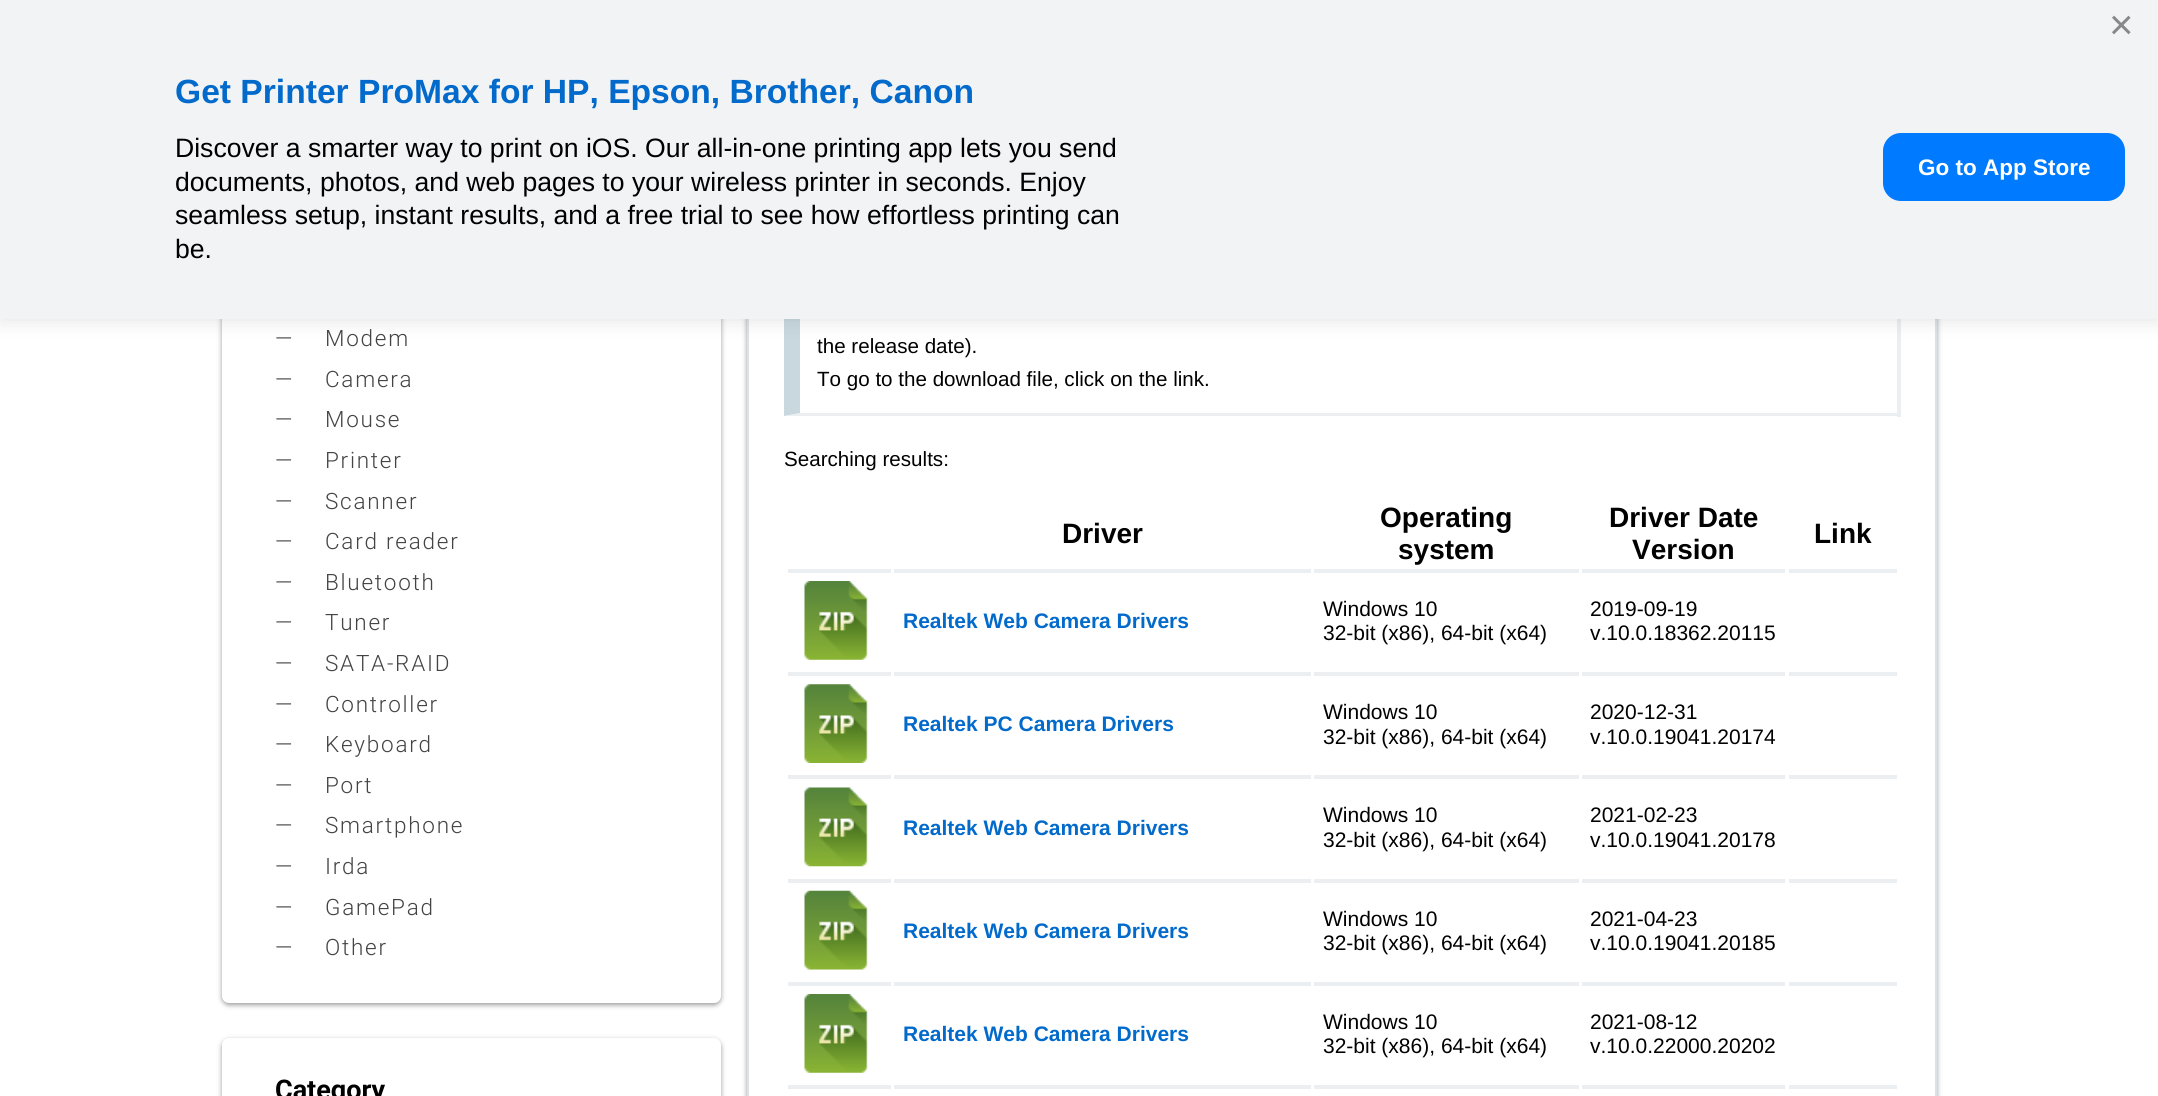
import math
import cairo


def use_color(cr, r, g, b):
  cr.set_source_rgb(r / 255, g / 255, b / 255)

def text(cr, x, y, s, family, size, color, bold=False, italic=False):
  cr.select_font_face(family, cairo.FONT_SLANT_ITALIC if italic else cairo.FONT_SLANT_NORMAL, cairo.FONT_WEIGHT_BOLD if bold else cairo.FONT_WEIGHT_NORMAL)
  cr.set_font_size(size)
  use_color(cr, *color)
  cr.move_to(x, y)
  cr.show_text(s)

def spaced_text(cr, x, y, s, letter, word):
  cr.move_to(x, y)
  for ch in s:
    cr.show_text(ch)
    cr.rel_move_to(letter + word * (ch == ' '), 0)

def box(cr, x, y, w, h, *color):
  use_color(cr, *color)
  cr.rectangle(x, y, w, h)
  cr.fill()

def round_rect(cr, x, y, w, h, r):
  cr.new_sub_path()
  for i, (u, v) in enumerate([(x + w - r, y + h - r), (x + r, y + h - r), (x + r, y + r), (x + w - r, y + r)]):
    cr.arc(u, v, r, i * math.pi / 2, (i + 1) * math.pi / 2)
  cr.close_path()

def shadow(cr, x, y, w, h, r, blur, alpha):
  cr.push_group_with_content(cairo.CONTENT_ALPHA)
  cr.set_operator(cairo.OPERATOR_SOURCE)
  for i in range(15, -16, -2):
    e = blur * i / 6
    if min(w, h) + 2 * e > 0:
      cr.set_source_rgba(0, 0, 0, alpha * math.erfc((i - 1) / 8.5) / 2)
      round_rect(cr, x - e, y - e, w + 2 * e, h + 2 * e, max(0, min(r + e + blur * .6, min(w, h) / 2 + e)))
      cr.fill()
  cr.mask(cr.pop_group())

def picture(cr, path, x, y, w, h):
  cr.save()
  cr.set_source_surface(cairo.ImageSurface.create_from_png(path), x, y)
  cr.rectangle(x, y, w, h)
  cr.fill()
  cr.restore()

def draw(cr):
  use_color(cr, 255, 255, 255)
  cr.paint()
  use_color(cr, 0, 0, 0)
  shadow(cr, 222, -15, 499, 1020, 7, 2.5, 0.4)
  use_color(cr, 255, 255, 255)
  round_rect(cr, 222, -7, 499, 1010, 7)
  cr.fill()
  use_color(cr, 0, 0, 0)
  shadow(cr, 747, -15, 1190, 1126, 7, 2.5, 0.4)
  box(cr, 749, 319, 1186, 777, 255, 255, 255)
  cr.rectangle(748, -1, 1188, 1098)
  use_color(cr, 218, 225, 232)
  cr.stroke()
  box(cr, 1897, 319, 4, 98, 235, 239, 242)
  cr.new_path()
  cr.move_to(1900, 416)
  cr.line_to(784, 416)
  cr.line_to(800, 413)
  cr.line_to(1897, 413)
  cr.close_path()
  cr.fill()
  use_color(cr, 201, 216, 223)
  cr.new_path()
  cr.move_to(784, 416)
  cr.line_to(784, 273)
  cr.line_to(800, 276)
  cr.line_to(800, 413)
  cr.close_path()
  cr.fill()
  use_color(cr, 0, 0, 0)
  shadow(cr, 0, 4, 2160, 318, 0, 9, 0.1)
  box(cr, 0, 0, 2158, 319, 242, 243, 245)
  use_color(cr, 0, 122, 255)
  round_rect(cr, 1883, 133, 242, 68, 18)
  cr.fill()
  use_color(cr, 0, 0, 0)
  shadow(cr, 222, 1040, 499, 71, 7, 2.5, 0.4)
  use_color(cr, 255, 255, 255)
  round_rect(cr, 222, 1038, 499, 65, 7)
  cr.fill()
  box(cr, 788, 569, 103, 4, 235, 239, 242)
  picture(cr, "img_01.png", 804, 581, 64, 79)
  box(cr, 1789, 569, 108, 4, 235, 239, 242)
  box(cr, 894, 569, 417, 4, 235, 239, 242)
  box(cr, 1314, 569, 265, 4, 235, 239, 242)
  box(cr, 1582, 569, 203, 4, 235, 239, 242)
  box(cr, 788, 672, 103, 4, 235, 239, 242)
  picture(cr, "img_02.png", 804, 684, 64, 79)
  box(cr, 1789, 672, 108, 4, 235, 239, 242)
  box(cr, 894, 672, 417, 4, 235, 239, 242)
  box(cr, 1314, 672, 265, 4, 235, 239, 242)
  box(cr, 1582, 672, 203, 4, 235, 239, 242)
  box(cr, 788, 775, 103, 4, 235, 239, 242)
  picture(cr, "img_03.png", 804, 787, 64, 80)
  box(cr, 1789, 775, 108, 4, 235, 239, 242)
  box(cr, 894, 775, 417, 4, 235, 239, 242)
  box(cr, 1314, 775, 265, 4, 235, 239, 242)
  box(cr, 1582, 775, 203, 4, 235, 239, 242)
  box(cr, 788, 879, 103, 4, 235, 239, 242)
  picture(cr, "img_04.png", 804, 890, 64, 80)
  box(cr, 1789, 879, 108, 4, 235, 239, 242)
  box(cr, 894, 879, 417, 4, 235, 239, 242)
  box(cr, 1314, 879, 265, 4, 235, 239, 242)
  box(cr, 1582, 879, 203, 4, 235, 239, 242)
  box(cr, 788, 982, 103, 4, 235, 239, 242)
  picture(cr, "img_01.png", 804, 994, 64, 79)
  box(cr, 1789, 982, 108, 4, 235, 239, 242)
  box(cr, 894, 982, 417, 4, 235, 239, 242)
  box(cr, 1314, 982, 265, 4, 235, 239, 242)
  box(cr, 1582, 982, 203, 4, 235, 239, 242)
  box(cr, 788, 1085, 103, 4, 235, 239, 242)
  box(cr, 894, 1085, 417, 4, 235, 239, 242)
  box(cr, 1314, 1085, 265, 4, 235, 239, 242)
  box(cr, 1582, 1085, 203, 4, 235, 239, 242)
  box(cr, 1789, 1085, 108, 4, 235, 239, 242)
  text(cr, 2109, 39, "×", "Liberation Sans", 42, (136, 136, 136))
  text(cr, 175, 103, "Get Printer ProMax for HP, Epson, Brother, Canon", "Liberation Sans", 33.6, (2, 106, 203), bold=True)
  text(cr, 175, 157, "Discover a smarter way to print on iOS. Our all-in-one printing app lets you send", "Liberation Sans", 26.6, (0, 0, 0))
  text(cr, 175, 191, "documents, photos, and web pages to your wireless printer in seconds. Enjoy", "Liberation Sans", 26.6, (0, 0, 0))
  text(cr, 175, 224, "seamless setup, instant results, and a free trial to see how effortless printing can", "Liberation Sans", 26.6, (0, 0, 0))
  text(cr, 175, 258, "be.", "Liberation Sans", 26.6, (0, 0, 0))
  text(cr, 1918, 175, "Go to App Store", "Liberation Sans", 22.5, (255, 255, 255), bold=True)
  cr.select_font_face("Roboto Light")
  use_color(cr, 68, 68, 68)
  spaced_text(cr, 275, 346, "—", 1.75, 0)
  spaced_text(cr, 325, 346, "Modem", 1.75, 0)
  spaced_text(cr, 275, 387, "—", 1.75, 0)
  spaced_text(cr, 325, 387, "Camera", 1.75, 0)
  spaced_text(cr, 275, 427, "—", 1.75, 0)
  spaced_text(cr, 325, 427, "Mouse", 1.75, 0)
  spaced_text(cr, 275, 468, "—", 1.75, 0)
  spaced_text(cr, 325, 468, "Printer", 1.75, 0)
  spaced_text(cr, 275, 509, "—", 1.75, 0)
  spaced_text(cr, 325, 509, "Scanner", 1.75, 0)
  spaced_text(cr, 275, 549, "—", 1.75, 0)
  spaced_text(cr, 325, 549, "Card reader", 1.75, 0)
  spaced_text(cr, 275, 590, "—", 1.75, 0)
  spaced_text(cr, 325, 590, "Bluetooth", 1.75, 0)
  spaced_text(cr, 275, 630, "—", 1.75, 0)
  spaced_text(cr, 325, 630, "Tuner", 1.75, 0)
  spaced_text(cr, 275, 671, "—", 1.75, 0)
  spaced_text(cr, 325, 671, "SATA-RAID", 1.75, 0)
  spaced_text(cr, 275, 712, "—", 1.75, 0)
  spaced_text(cr, 325, 712, "Controller", 1.75, 0)
  spaced_text(cr, 275, 752, "—", 1.75, 0)
  spaced_text(cr, 325, 752, "Keyboard", 1.75, 0)
  spaced_text(cr, 275, 793, "—", 1.75, 0)
  spaced_text(cr, 325, 793, "Port", 1.75, 0)
  spaced_text(cr, 275, 833, "—", 1.75, 0)
  spaced_text(cr, 325, 833, "Smartphone", 1.75, 0)
  spaced_text(cr, 275, 874, "—", 1.75, 0)
  spaced_text(cr, 325, 874, "Irda", 1.75, 0)
  spaced_text(cr, 275, 915, "—", 1.75, 0)
  spaced_text(cr, 325, 915, "GamePad", 1.75, 0)
  spaced_text(cr, 275, 955, "—", 1.75, 0)
  spaced_text(cr, 325, 955, "Other", 1.75, 0)
  text(cr, 275, 1099, "Category", "Roboto", 27, (0, 0, 0), bold=True)
  text(cr, 817, 353, "the release date).", "Liberation Sans", 20.6, (0, 0, 0))
  text(cr, 817, 386, "To go to the download file, click on the link.", "Liberation Sans", 20.6, (0, 0, 0))
  text(cr, 784, 466, "Searching results:", "Liberation Sans", 20.6, (0, 0, 0))
  text(cr, 1062, 543, "Driver", "Liberation Sans", 28, (0, 0, 0), bold=True)
  text(cr, 1380, 527, "Operating", "Liberation Sans", 28, (0, 0, 0), bold=True)
  text(cr, 1398, 559, "system", "Liberation Sans", 28, (0, 0, 0), bold=True)
  text(cr, 1609, 527, "Driver Date", "Liberation Sans", 28, (0, 0, 0), bold=True)
  text(cr, 1632, 559, "Version", "Liberation Sans", 28, (0, 0, 0), bold=True)
  text(cr, 1814, 543, "Link", "Liberation Sans", 28, (0, 0, 0), bold=True)
  text(cr, 903, 628, "Realtek Web Camera Drivers", "Liberation Sans", 21, (2, 106, 203), bold=True)
  text(cr, 1323, 616, "Windows 10", "Liberation Sans", 21, (0, 0, 0))
  text(cr, 1323, 640, "32-bit (x86), 64-bit (x64)", "Liberation Sans", 21, (0, 0, 0))
  text(cr, 1590, 616, "2019-09-19", "Liberation Sans", 21, (0, 0, 0))
  text(cr, 1590, 640, "v.10.0.18362.20115", "Liberation Sans", 21, (0, 0, 0))
  text(cr, 903, 731, "Realtek PC Camera Drivers", "Liberation Sans", 21, (2, 106, 203), bold=True)
  text(cr, 1323, 719, "Windows 10", "Liberation Sans", 21, (0, 0, 0))
  text(cr, 1323, 744, "32-bit (x86), 64-bit (x64)", "Liberation Sans", 21, (0, 0, 0))
  text(cr, 1590, 719, "2020-12-31", "Liberation Sans", 21, (0, 0, 0))
  text(cr, 1590, 744, "v.10.0.19041.20174", "Liberation Sans", 21, (0, 0, 0))
  text(cr, 903, 835, "Realtek Web Camera Drivers", "Liberation Sans", 21, (2, 106, 203), bold=True)
  text(cr, 1323, 822, "Windows 10", "Liberation Sans", 21, (0, 0, 0))
  text(cr, 1323, 847, "32-bit (x86), 64-bit (x64)", "Liberation Sans", 21, (0, 0, 0))
  text(cr, 1590, 822, "2021-02-23", "Liberation Sans", 21, (0, 0, 0))
  text(cr, 1590, 847, "v.10.0.19041.20178", "Liberation Sans", 21, (0, 0, 0))
  text(cr, 903, 938, "Realtek Web Camera Drivers", "Liberation Sans", 21, (2, 106, 203), bold=True)
  text(cr, 1323, 926, "Windows 10", "Liberation Sans", 21, (0, 0, 0))
  text(cr, 1323, 950, "32-bit (x86), 64-bit (x64)", "Liberation Sans", 21, (0, 0, 0))
  text(cr, 1590, 926, "2021-04-23", "Liberation Sans", 21, (0, 0, 0))
  text(cr, 1590, 950, "v.10.0.19041.20185", "Liberation Sans", 21, (0, 0, 0))
  text(cr, 903, 1041, "Realtek Web Camera Drivers", "Liberation Sans", 21, (2, 106, 203), bold=True)
  text(cr, 1323, 1029, "Windows 10", "Liberation Sans", 21, (0, 0, 0))
  text(cr, 1323, 1053, "32-bit (x86), 64-bit (x64)", "Liberation Sans", 21, (0, 0, 0))
  text(cr, 1590, 1029, "2021-08-12", "Liberation Sans", 21, (0, 0, 0))
  text(cr, 1590, 1053, "v.10.0.22000.20202", "Liberation Sans", 21, (0, 0, 0))


surface = cairo.ImageSurface(cairo.FORMAT_RGB24, 2158, 1096)
cr = cairo.Context(surface)
options = cairo.FontOptions()
options.set_hint_metrics(cairo.HINT_METRICS_OFF)
options.set_hint_style(cairo.HINT_STYLE_NONE)
cr.set_font_options(options)
cr.set_miter_limit(4)
draw(cr)
surface.write_to_png("out.png")
